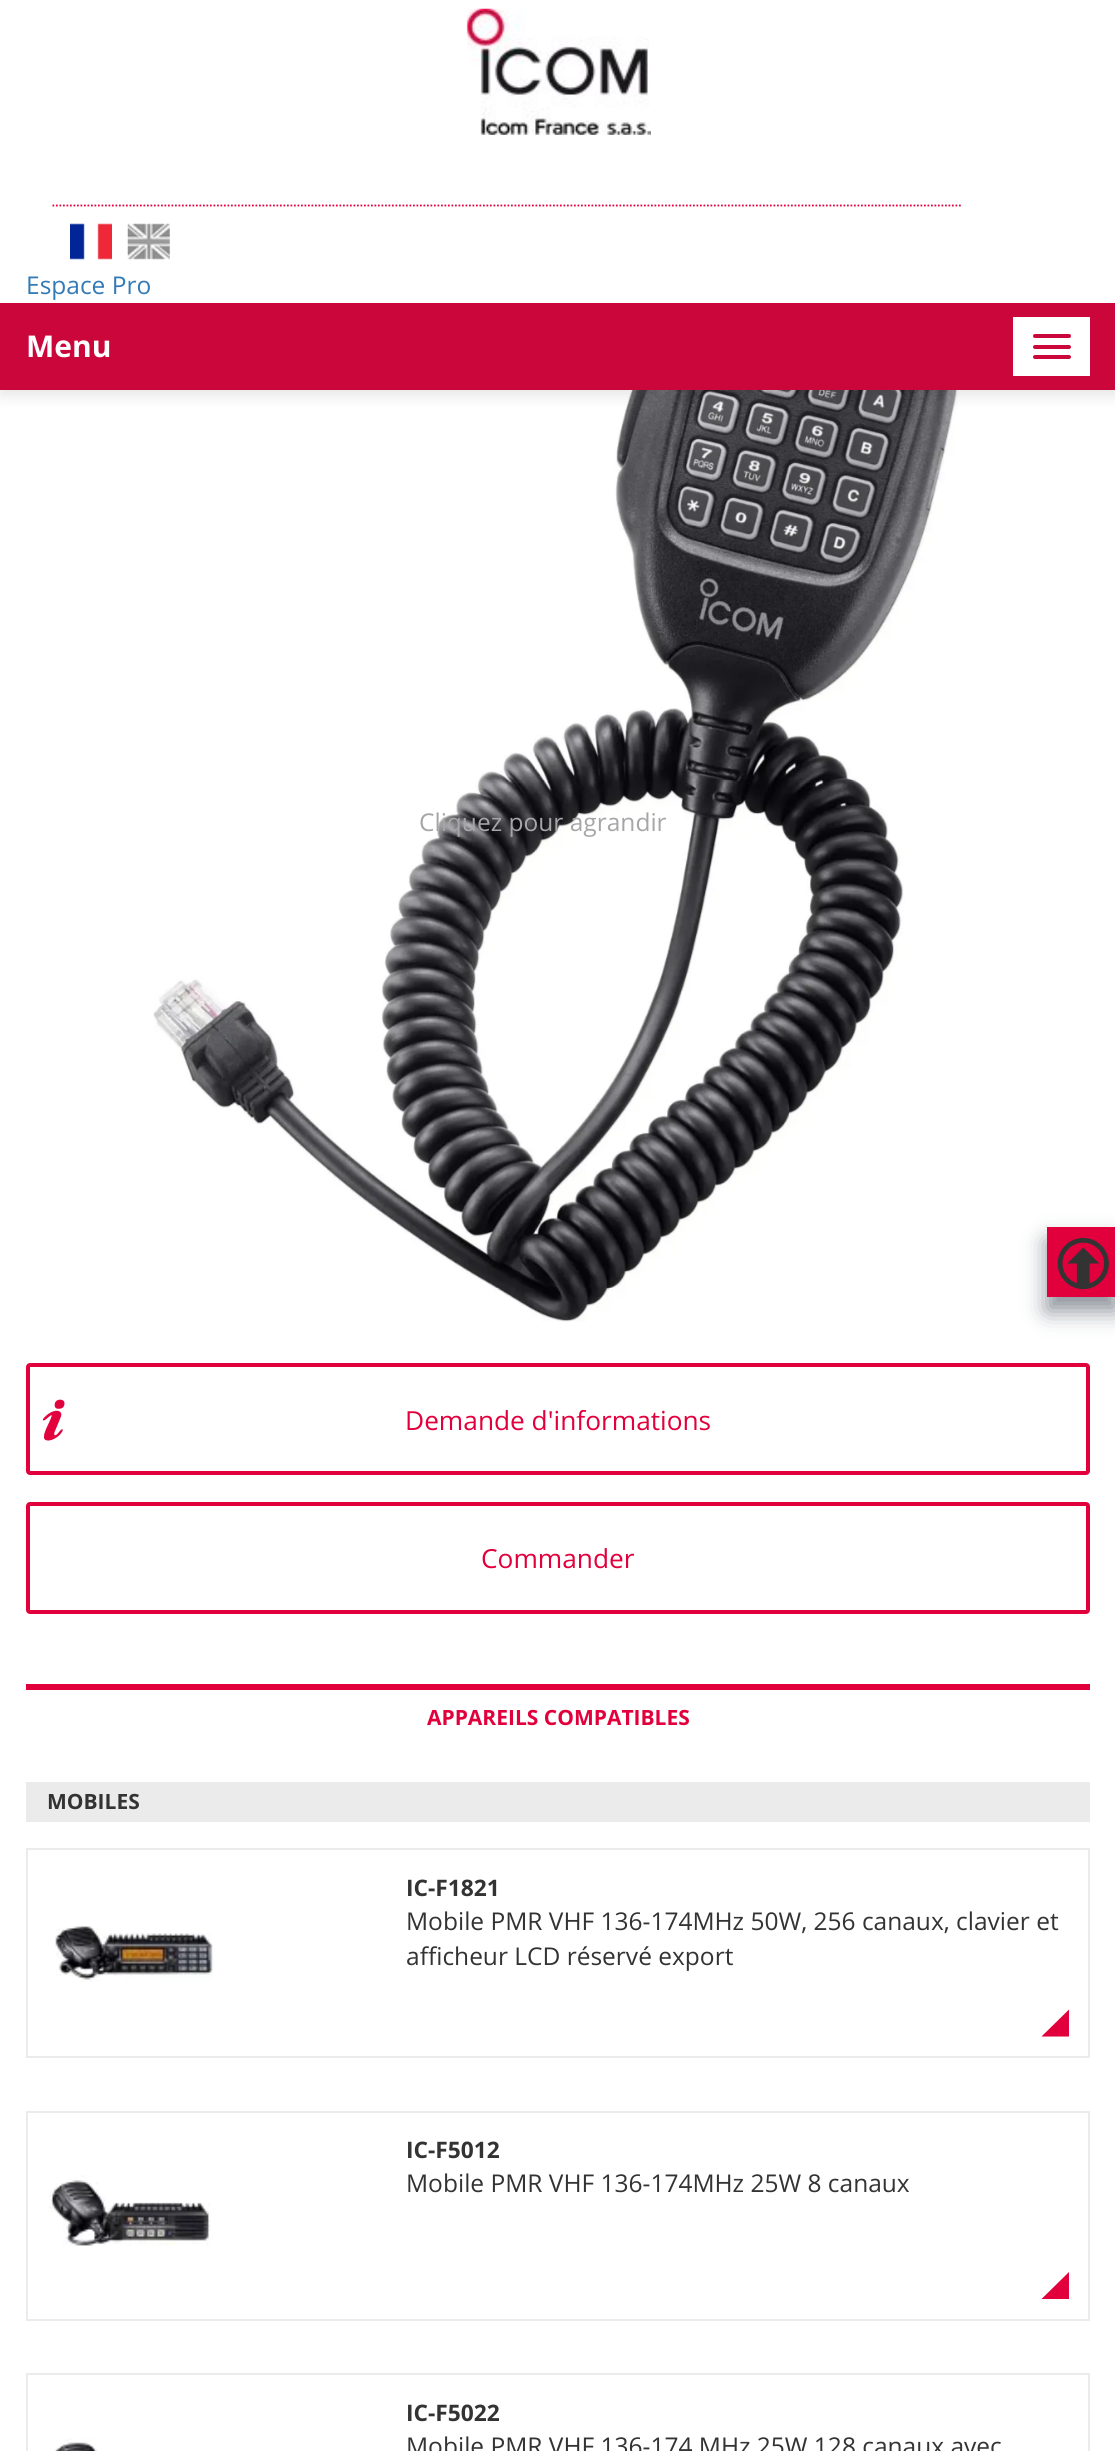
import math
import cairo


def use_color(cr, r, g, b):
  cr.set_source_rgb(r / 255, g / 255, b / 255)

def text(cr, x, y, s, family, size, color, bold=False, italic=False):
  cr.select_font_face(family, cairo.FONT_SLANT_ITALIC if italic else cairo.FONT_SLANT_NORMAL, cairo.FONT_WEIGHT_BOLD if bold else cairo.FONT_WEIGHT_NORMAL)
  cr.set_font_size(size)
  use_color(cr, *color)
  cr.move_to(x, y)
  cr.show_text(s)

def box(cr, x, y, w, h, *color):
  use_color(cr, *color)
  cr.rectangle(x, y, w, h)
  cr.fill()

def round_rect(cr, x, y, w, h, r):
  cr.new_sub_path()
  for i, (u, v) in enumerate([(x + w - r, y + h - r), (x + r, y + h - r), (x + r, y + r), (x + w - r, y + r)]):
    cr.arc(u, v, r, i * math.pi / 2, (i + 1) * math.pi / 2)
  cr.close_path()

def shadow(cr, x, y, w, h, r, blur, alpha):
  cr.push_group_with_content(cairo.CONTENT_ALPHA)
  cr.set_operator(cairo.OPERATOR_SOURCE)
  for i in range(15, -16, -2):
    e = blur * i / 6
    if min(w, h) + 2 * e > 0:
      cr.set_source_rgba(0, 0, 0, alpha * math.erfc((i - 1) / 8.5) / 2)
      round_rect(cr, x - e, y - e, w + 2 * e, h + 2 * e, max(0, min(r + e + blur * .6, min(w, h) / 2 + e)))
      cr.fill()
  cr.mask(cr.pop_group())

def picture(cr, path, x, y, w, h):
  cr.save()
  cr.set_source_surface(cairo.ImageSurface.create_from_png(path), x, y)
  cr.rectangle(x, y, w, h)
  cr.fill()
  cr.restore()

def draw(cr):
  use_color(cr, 255, 255, 255)
  cr.paint()
  picture(cr, "img_04.png", 153, 390, 805, 932)
  use_color(cr, 0, 0, 0)
  shadow(cr, 0, 5, 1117, 391, 0, 7, 0.1)
  box(cr, 0, 0, 1115, 303, 255, 255, 255)
  picture(cr, "img_01.png", 466, 8, 185, 127)
  cr.new_path()
  cr.move_to(52.5, 205.5)
  cr.line_to(962.5, 205.5)
  use_color(cr, 226, 0, 60)
  cr.set_line_width(1.8)
  cr.set_dash([1.75, 1.75])
  cr.stroke()
  picture(cr, "img_02.png", 70, 223, 42, 37)
  picture(cr, "img_03.png", 127, 223, 43, 37)
  box(cr, 0, 303, 1115, 87, 202, 6, 58)
  box(cr, 1013, 317, 77, 59, 255, 255, 255)
  use_color(cr, 202, 6, 58)
  round_rect(cr, 1033, 334, 38, 4, 2)
  cr.fill()
  round_rect(cr, 1033, 345, 38, 4, 2)
  cr.fill()
  round_rect(cr, 1033, 355, 38, 4, 2)
  cr.fill()
  round_rect(cr, 28, 1365, 1060, 108, 2)
  use_color(cr, 226, 0, 60)
  cr.set_line_width(4)
  cr.set_dash([])
  cr.stroke()
  picture(cr, "img_05.png", 42, 1399, 23, 42)
  round_rect(cr, 28, 1504, 1060, 108, 2)
  cr.stroke()
  use_color(cr, 88, 97, 110)
  shadow(cr, 1047, 1241, 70, 70, 0, 11.5, 0.7)
  box(cr, 1047, 1227, 68, 70, 226, 0, 60)
  picture(cr, "img_06.png", 1057, 1237, 52, 53)
  box(cr, 26, 1684, 1064, 6, 226, 0, 60)
  box(cr, 26, 1782, 1064, 40, 235, 235, 235)
  cr.rectangle(27, 1849, 1062, 208)
  cr.set_line_width(2)
  cr.stroke()
  picture(cr, "img_07.png", 55, 1926, 159, 56)
  use_color(cr, 226, 0, 60)
  cr.new_path()
  cr.move_to(1069, 2009.5)
  cr.line_to(1069, 2036.5)
  cr.line_to(1041.5, 2036.5)
  cr.close_path()
  cr.fill()
  cr.rectangle(27, 2112, 1062, 208)
  use_color(cr, 235, 235, 235)
  cr.stroke()
  picture(cr, "img_08.png", 49, 2175, 162, 71)
  use_color(cr, 226, 0, 60)
  cr.new_path()
  cr.move_to(1069, 2272)
  cr.line_to(1069, 2299)
  cr.line_to(1041.5, 2299)
  cr.close_path()
  cr.fill()
  cr.rectangle(27, 2374, 1062, 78)
  use_color(cr, 235, 235, 235)
  cr.stroke()
  picture(cr, "img_09.png", 55, 2438, 42, 13)
  text(cr, 26, 294, "Espace Pro", "Open Sans", 24.5, (51, 122, 183))
  text(cr, 26, 357, "Menu", "Open Sans", 30, (255, 255, 255), bold=True)
  text(cr, 419, 831, "Cliquez pour agrandir", "Open Sans", 24.5, (166, 165, 167))
  text(cr, 405, 1430, "Demande d'informations", "Open Sans", 26.25, (226, 0, 60))
  text(cr, 481, 1568, "Commander", "Open Sans", 26.25, (226, 0, 60))
  text(cr, 427, 1725, "APPAREILS COMPATIBLES", "Open Sans", 21, (226, 0, 60), bold=True)
  text(cr, 47, 1809, "MOBILES", "Open Sans", 21, (51, 51, 51), bold=True)
  text(cr, 406, 1896, "IC-F1821", "Open Sans", 22.75, (51, 51, 51), bold=True)
  text(cr, 406, 1930, "Mobile PMR VHF 136-174MHz 50W, 256 canaux, clavier et", "Open Sans", 24.5, (51, 51, 51))
  text(cr, 406, 1965, "afficheur LCD réservé export", "Open Sans", 24.5, (51, 51, 51))
  text(cr, 406, 2158, "IC-F5012", "Open Sans", 22.75, (51, 51, 51), bold=True)
  text(cr, 406, 2192, "Mobile PMR VHF 136-174MHz 25W 8 canaux", "Open Sans", 24.5, (51, 51, 51))
  text(cr, 406, 2421, "IC-F5022", "Open Sans", 22.75, (51, 51, 51), bold=True)
  text(cr, 406, 2455, "Mobile PMR VHF 136-174 MHz 25W 128 canaux avec", "Open Sans", 24.5, (51, 51, 51))


surface = cairo.ImageSurface(cairo.FORMAT_RGB24, 1115, 2451)
cr = cairo.Context(surface)
options = cairo.FontOptions()
options.set_hint_metrics(cairo.HINT_METRICS_OFF)
options.set_hint_style(cairo.HINT_STYLE_NONE)
cr.set_font_options(options)
cr.set_miter_limit(4)
draw(cr)
surface.write_to_png("out.png")
